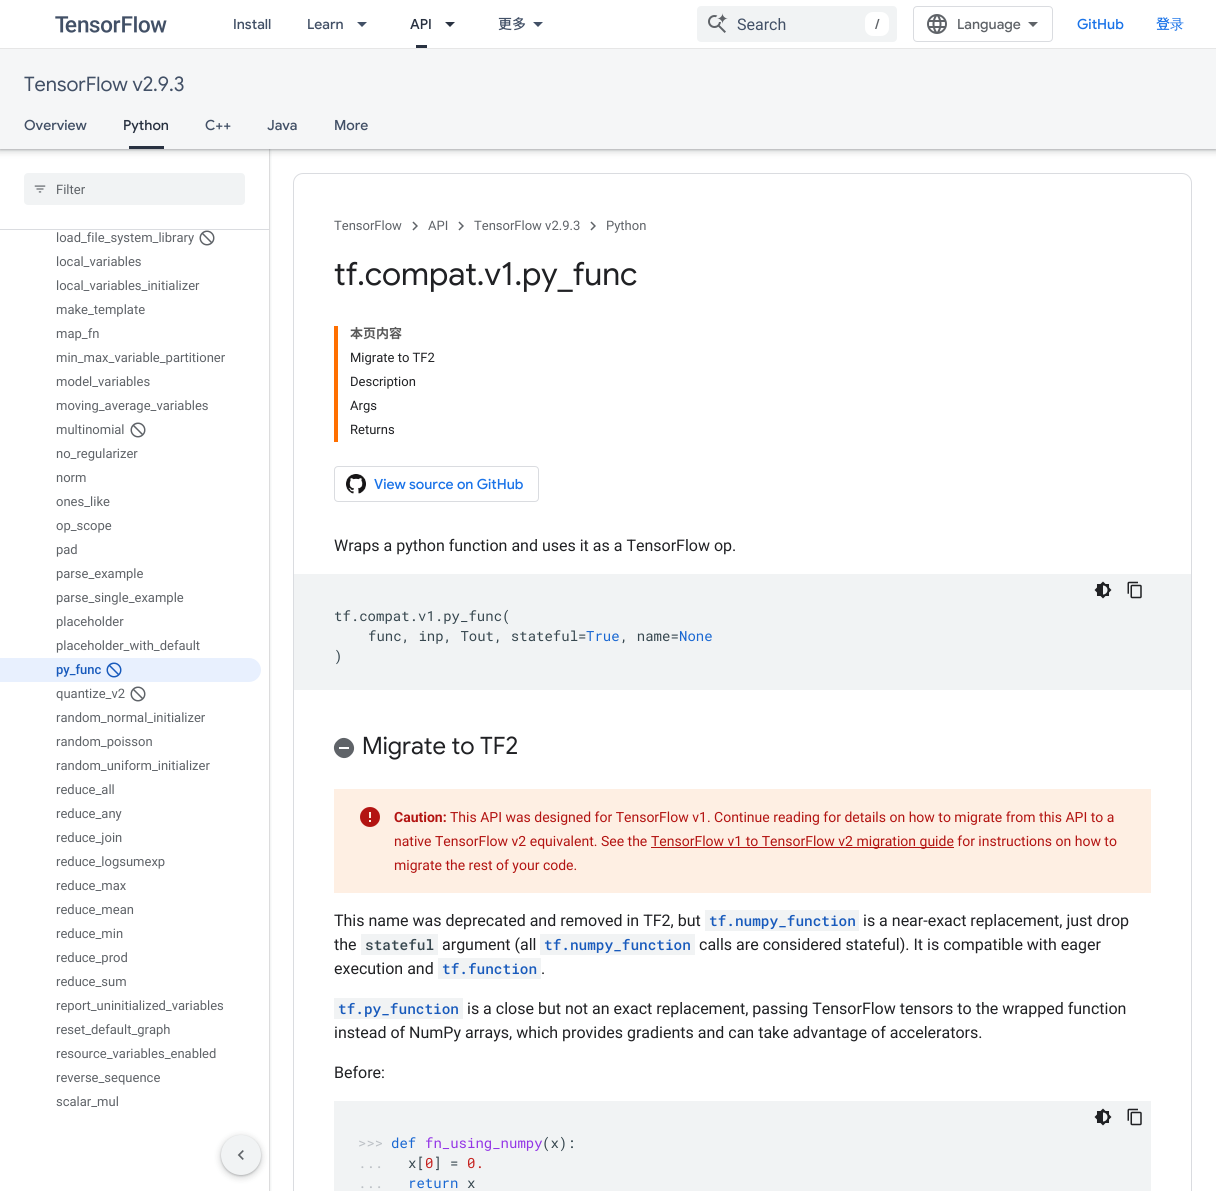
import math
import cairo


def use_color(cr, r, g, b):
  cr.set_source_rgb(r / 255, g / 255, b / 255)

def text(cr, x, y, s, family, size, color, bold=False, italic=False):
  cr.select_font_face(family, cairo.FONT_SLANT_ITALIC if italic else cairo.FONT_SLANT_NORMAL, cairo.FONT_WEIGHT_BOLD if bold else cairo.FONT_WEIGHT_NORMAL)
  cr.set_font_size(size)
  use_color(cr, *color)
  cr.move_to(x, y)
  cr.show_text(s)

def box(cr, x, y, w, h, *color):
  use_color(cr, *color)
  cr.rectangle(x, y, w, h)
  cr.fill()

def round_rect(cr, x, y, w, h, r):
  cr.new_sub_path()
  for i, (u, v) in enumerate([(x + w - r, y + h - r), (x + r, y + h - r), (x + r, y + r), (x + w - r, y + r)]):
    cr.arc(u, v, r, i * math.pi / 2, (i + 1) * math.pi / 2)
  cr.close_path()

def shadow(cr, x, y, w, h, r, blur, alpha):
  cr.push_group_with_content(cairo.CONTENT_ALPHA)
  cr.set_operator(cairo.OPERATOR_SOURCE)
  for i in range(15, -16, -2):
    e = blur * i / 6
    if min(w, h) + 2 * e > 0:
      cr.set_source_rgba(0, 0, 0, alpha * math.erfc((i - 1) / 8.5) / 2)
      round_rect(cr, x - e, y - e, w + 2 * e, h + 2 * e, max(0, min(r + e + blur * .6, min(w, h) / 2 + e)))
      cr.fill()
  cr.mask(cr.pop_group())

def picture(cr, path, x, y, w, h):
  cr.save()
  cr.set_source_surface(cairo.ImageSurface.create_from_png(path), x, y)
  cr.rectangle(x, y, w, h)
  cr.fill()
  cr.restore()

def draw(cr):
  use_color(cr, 255, 255, 255)
  cr.paint()
  cr.save()
  cr.rectangle(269, 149, 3, 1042)
  cr.clip()
  use_color(cr, 60, 64, 67)
  shadow(cr, -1, 0, 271, 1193, 0, 1.5, 0.15)
  cr.restore()
  cr.save()
  cr.rectangle(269, 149, 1, 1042)
  cr.clip()
  use_color(cr, 60, 64, 67)
  shadow(cr, 0, 1, 269, 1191, 0, 1, 0.3)
  cr.restore()
  use_color(cr, 60, 64, 67)
  shadow(cr, -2, 49, 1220, 104, 0, 3, 0.15)
  shadow(cr, 0, 50, 1216, 100, 0, 1, 0.3)
  box(cr, 0, 0, 1216, 48, 255, 255, 255)
  box(cr, 0, 48, 1216, 1, 230, 230, 230)
  picture(cr, "img_01.png", 55, 16, 112, 17)
  use_color(cr, 66, 80, 102)
  cr.new_path()
  cr.move_to(357, 22)
  cr.line_to(367, 22)
  cr.line_to(362, 27)
  cr.close_path()
  cr.fill()
  box(cr, 416, 45, 11, 3, 41, 50, 65)
  cr.new_path()
  cr.move_to(445, 22)
  cr.line_to(455, 22)
  cr.line_to(450, 27)
  cr.close_path()
  cr.fill()
  use_color(cr, 66, 80, 102)
  cr.new_path()
  cr.move_to(533, 22)
  cr.line_to(543, 22)
  cr.line_to(538, 27)
  cr.close_path()
  cr.fill()
  use_color(cr, 241, 243, 244)
  round_rect(cr, 697, 6, 200, 36, 4)
  cr.fill()
  picture(cr, "img_02.png", 708, 13, 20, 20)
  use_color(cr, 255, 255, 255)
  round_rect(cr, 865, 12, 24, 24, 8)
  cr.fill()
  round_rect(cr, 913.5, 6.5, 139, 35, 3.5)
  use_color(cr, 218, 220, 224)
  cr.set_line_width(1)
  cr.stroke()
  picture(cr, "img_03.png", 927, 14, 20, 20)
  use_color(cr, 95, 99, 104)
  cr.new_path()
  cr.move_to(1033, 27)
  cr.line_to(1028, 22)
  cr.line_to(1038, 22)
  cr.close_path()
  cr.fill()
  box(cr, 0, 49, 1216, 100, 245, 246, 247)
  box(cr, 129, 146, 35, 3, 41, 50, 65)
  box(cr, 0, 229, 269, 1, 218, 220, 224)
  use_color(cr, 241, 243, 244)
  round_rect(cr, 24, 173, 221, 32, 4)
  cr.fill()
  picture(cr, "img_04.png", 34, 185, 12, 8)
  picture(cr, "img_05.png", 199, 230, 16, 16)
  picture(cr, "img_05.png", 130, 422, 16, 16)
  use_color(cr, 232, 240, 254)
  cr.new_path()
  cr.move_to(0, 658)
  cr.line_to(249, 658)
  cr.curve_to(255.5, 658, 261, 663.5, 261, 670)
  cr.curve_to(261, 676.5, 255.5, 682, 249, 682)
  cr.line_to(0, 682)
  cr.close_path()
  cr.fill()
  picture(cr, "img_06.png", 106, 662, 16, 16)
  picture(cr, "img_05.png", 130, 686, 16, 16)
  use_color(cr, 60, 64, 67)
  shadow(cr, 219, 1135, 44, 44, 22, 3, 0.15)
  shadow(cr, 221, 1136, 40, 40, 20, 1, 0.3)
  use_color(cr, 241, 243, 244)
  cr.arc(241, 1155, 20, 0, 2 * math.pi)
  cr.fill()
  picture(cr, "img_07.png", 237, 1150, 7, 10)
  round_rect(cr, 293.5, 173.5, 898, 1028, 9.5)
  use_color(cr, 218, 220, 224)
  cr.stroke()
  picture(cr, "img_08.png", 412, 221, 6, 10)
  picture(cr, "img_08.png", 458, 221, 6, 10)
  picture(cr, "img_08.png", 590, 221, 6, 10)
  box(cr, 334, 326, 4, 116, 255, 111, 0)
  round_rect(cr, 334.5, 466.5, 204, 35, 3.5)
  use_color(cr, 218, 220, 224)
  cr.stroke()
  picture(cr, "img_09.png", 346, 474, 20, 20)
  box(cr, 294, 574, 897, 116, 241, 243, 244)
  picture(cr, "img_10.png", 1094, 581, 18, 18)
  picture(cr, "img_11.png", 1127, 581, 15, 18)
  use_color(cr, 95, 99, 104)
  cr.new_path()
  cr.move_to(349, 749)
  cr.line_to(349, 747)
  cr.line_to(339, 747)
  cr.line_to(339, 749)
  cr.close_path()
  cr.move_to(337, 741)
  cr.curve_to(346, 731.5, 360.5, 746, 351, 755)
  cr.curve_to(342, 764.5, 327.5, 750, 337, 741)
  cr.close_path()
  cr.fill()
  box(cr, 334, 789, 817, 104, 254, 239, 227)
  picture(cr, "img_12.png", 360, 807, 20, 20)
  box(cr, 651, 847, 303, 1, 179, 20, 18)
  box(cr, 705, 910, 154, 21, 241, 243, 244)
  box(cr, 361, 934, 77, 21, 241, 243, 244)
  box(cr, 540, 934, 155, 21, 241, 243, 244)
  box(cr, 438, 958, 103, 21, 241, 243, 244)
  box(cr, 334, 998, 129, 21, 241, 243, 244)
  box(cr, 334, 1101, 817, 90, 241, 243, 244)
  picture(cr, "img_10.png", 1094, 1108, 18, 18)
  picture(cr, "img_11.png", 1127, 1108, 15, 18)
  text(cr, 233, 29, "Install", "Google Sans Medium", 14, (66, 80, 102))
  text(cr, 307, 29, "Learn", "Google Sans Medium", 14, (66, 80, 102))
  text(cr, 410, 29, "API", "Google Sans Medium", 14, (41, 50, 65))
  text(cr, 498, 29, "更多", "Noto Sans JP Medium", 14, (66, 80, 102))
  text(cr, 737, 30, "Search", "Roboto", 16, (66, 80, 102))
  text(cr, 875, 29, "/", "Google Sans Medium", 14, (95, 99, 104))
  text(cr, 957, 29, "Language", "Google Sans Medium", 14, (95, 99, 104))
  text(cr, 1077, 29, "GitHub", "Google Sans Medium", 14, (26, 115, 232))
  text(cr, 1156, 29, "登", "Noto Sans JP Medium", 14, (26, 115, 232))
  text(cr, 1170, 29, "录", "WenQuanYi Zen Hei Medium", 14, (26, 115, 232))
  text(cr, 24, 91, "TensorFlow v2.9.3", "Google Sans", 20, (66, 80, 102))
  text(cr, 24, 130, "Overview", "Google Sans Medium", 14, (66, 80, 102))
  text(cr, 123, 130, "Python", "Google Sans Medium", 14, (41, 50, 65))
  text(cr, 205, 130, "C++", "Google Sans Medium", 14, (66, 80, 102))
  text(cr, 267, 130, "Java", "Google Sans Medium", 14, (66, 80, 102))
  text(cr, 334, 130, "More", "Google Sans Medium", 14, (66, 80, 102))
  text(cr, 56, 194, "Filter", "Roboto", 13, (95, 99, 104))
  text(cr, 56, 242, "load_file_system_library", "Roboto", 13, (95, 99, 104))
  text(cr, 56, 266, "local_variables", "Roboto", 13, (95, 99, 104))
  text(cr, 56, 290, "local_variables_initializer", "Roboto", 13, (95, 99, 104))
  text(cr, 56, 314, "make_template", "Roboto", 13, (95, 99, 104))
  text(cr, 56, 338, "map_fn", "Roboto", 13, (95, 99, 104))
  text(cr, 56, 362, "min_max_variable_partitioner", "Roboto", 13, (95, 99, 104))
  text(cr, 56, 386, "model_variables", "Roboto", 13, (95, 99, 104))
  text(cr, 56, 410, "moving_average_variables", "Roboto", 13, (95, 99, 104))
  text(cr, 56, 434, "multinomial", "Roboto", 13, (95, 99, 104))
  text(cr, 56, 458, "no_regularizer", "Roboto", 13, (95, 99, 104))
  text(cr, 56, 482, "norm", "Roboto", 13, (95, 99, 104))
  text(cr, 56, 506, "ones_like", "Roboto", 13, (95, 99, 104))
  text(cr, 56, 530, "op_scope", "Roboto", 13, (95, 99, 104))
  text(cr, 56, 554, "pad", "Roboto", 13, (95, 99, 104))
  text(cr, 56, 578, "parse_example", "Roboto", 13, (95, 99, 104))
  text(cr, 56, 602, "parse_single_example", "Roboto", 13, (95, 99, 104))
  text(cr, 56, 626, "placeholder", "Roboto", 13, (95, 99, 104))
  text(cr, 56, 650, "placeholder_with_default", "Roboto", 13, (95, 99, 104))
  text(cr, 56, 674, "py_func", "Roboto Medium", 13, (24, 90, 188))
  text(cr, 56, 698, "quantize_v2", "Roboto", 13, (95, 99, 104))
  text(cr, 56, 722, "random_normal_initializer", "Roboto", 13, (95, 99, 104))
  text(cr, 56, 746, "random_poisson", "Roboto", 13, (95, 99, 104))
  text(cr, 56, 770, "random_uniform_initializer", "Roboto", 13, (95, 99, 104))
  text(cr, 56, 794, "reduce_all", "Roboto", 13, (95, 99, 104))
  text(cr, 56, 818, "reduce_any", "Roboto", 13, (95, 99, 104))
  text(cr, 56, 842, "reduce_join", "Roboto", 13, (95, 99, 104))
  text(cr, 56, 866, "reduce_logsumexp", "Roboto", 13, (95, 99, 104))
  text(cr, 56, 890, "reduce_max", "Roboto", 13, (95, 99, 104))
  text(cr, 56, 914, "reduce_mean", "Roboto", 13, (95, 99, 104))
  text(cr, 56, 938, "reduce_min", "Roboto", 13, (95, 99, 104))
  text(cr, 56, 962, "reduce_prod", "Roboto", 13, (95, 99, 104))
  text(cr, 56, 986, "reduce_sum", "Roboto", 13, (95, 99, 104))
  text(cr, 56, 1010, "report_uninitialized_variables", "Roboto", 13, (95, 99, 104))
  text(cr, 56, 1034, "reset_default_graph", "Roboto", 13, (95, 99, 104))
  text(cr, 56, 1058, "resource_variables_enabled", "Roboto", 13, (95, 99, 104))
  text(cr, 56, 1082, "reverse_sequence", "Roboto", 13, (95, 99, 104))
  text(cr, 56, 1106, "scalar_mul", "Roboto", 13, (95, 99, 104))
  text(cr, 334, 230, "TensorFlow", "Roboto", 13, (95, 99, 104))
  text(cr, 428, 230, "API", "Roboto", 13, (95, 99, 104))
  text(cr, 474, 230, "TensorFlow v2.9.3", "Roboto", 13, (95, 99, 104))
  text(cr, 606, 230, "Python", "Roboto", 13, (95, 99, 104))
  text(cr, 334, 285, "tf.compat.v1.py_func", "Google Sans", 32, (32, 33, 36))
  text(cr, 350, 338, "本页内容", "Noto Sans JP", 13, (89, 89, 89), bold=True)
  text(cr, 350, 362, "Migrate to TF2", "Roboto", 13, (32, 33, 36))
  text(cr, 350, 386, "Description", "Roboto", 13, (32, 33, 36))
  text(cr, 350, 410, "Args", "Roboto", 13, (32, 33, 36))
  text(cr, 350, 434, "Returns", "Roboto", 13, (32, 33, 36))
  text(cr, 374, 489, "View source on GitHub", "Google Sans Medium", 14, (26, 115, 232))
  text(cr, 334, 551, "Wraps a python function and uses it as a TensorFlow op.", "Roboto", 16, (32, 33, 36))
  text(cr, 334, 621, "tf.compat.v1.py_func(", "Roboto Mono", 14, (55, 71, 79))
  text(cr, 368, 641, "func, inp, Tout, stateful=", "Roboto Mono", 14, (55, 71, 79))
  text(cr, 586, 641, "True", "Roboto Mono", 14, (25, 103, 210))
  text(cr, 620, 641, ", name=", "Roboto Mono", 14, (55, 71, 79))
  text(cr, 679, 641, "None", "Roboto Mono", 14, (25, 103, 210))
  text(cr, 334, 661, ")", "Roboto Mono", 14, (55, 71, 79))
  text(cr, 362, 754, "Migrate to TF2", "Google Sans", 24, (32, 33, 36))
  text(cr, 394, 822, "Caution:", "Roboto", 14, (179, 20, 18), bold=True)
  text(cr, 450, 822, "This API was designed for TensorFlow v1. Continue reading for details on how to migrate from this API to a", "Roboto", 14, (179, 20, 18))
  text(cr, 394, 846, "native TensorFlow v2 equivalent. See the", "Roboto", 14, (179, 20, 18))
  text(cr, 651, 846, "TensorFlow v1 to TensorFlow v2 migration guide for instructions on how to", "Roboto", 14, (179, 20, 18))
  text(cr, 394, 870, "migrate the rest of your code.", "Roboto", 14, (179, 20, 18))
  text(cr, 334, 926, "This name was deprecated and removed in TF2, but", "Roboto", 16, (32, 33, 36))
  text(cr, 709, 926, "tf.numpy_function", "Roboto Mono Medium", 14.4, (24, 90, 188))
  text(cr, 863, 926, "is a near-exact replacement, just drop", "Roboto", 16, (32, 33, 36))
  text(cr, 334, 950, "the", "Roboto", 16, (32, 33, 36))
  text(cr, 365, 950, "stateful", "Roboto Mono Medium", 14.4, (55, 71, 79))
  text(cr, 442, 950, "argument (all", "Roboto", 16, (32, 33, 36))
  text(cr, 544, 950, "tf.numpy_function", "Roboto Mono Medium", 14.4, (24, 90, 188))
  text(cr, 699, 950, "calls are considered stateful). It is compatible with eager", "Roboto", 16, (32, 33, 36))
  text(cr, 334, 974, "execution and", "Roboto", 16, (32, 33, 36))
  text(cr, 442, 974, "tf.function", "Roboto Mono Medium", 14.4, (24, 90, 188))
  text(cr, 541, 974, ".", "Roboto", 16, (32, 33, 36))
  text(cr, 338, 1014, "tf.py_function", "Roboto Mono Medium", 14.4, (24, 90, 188))
  text(cr, 467, 1014, "is a close but not an exact replacement, passing TensorFlow tensors to the wrapped function", "Roboto", 16, (32, 33, 36))
  text(cr, 334, 1038, "instead of NumPy arrays, which provides gradients and can take advantage of accelerators.", "Roboto", 16, (32, 33, 36))
  text(cr, 334, 1078, "Before:", "Roboto", 16, (32, 33, 36))
  text(cr, 358, 1148, ">>>", "Roboto Mono", 14, (189, 193, 198))
  text(cr, 391, 1148, "def", "Roboto Mono", 14, (25, 103, 210))
  text(cr, 425, 1148, "fn_using_numpy", "Roboto Mono", 14, (147, 52, 230))
  text(cr, 542, 1148, "(x):", "Roboto Mono", 14, (55, 71, 79))
  text(cr, 408, 1168, "x[ ] =", "Roboto Mono", 14, (55, 71, 79))
  text(cr, 358, 1168, "...", "Roboto Mono", 14, (189, 193, 198))
  text(cr, 425, 1168, "0", "Roboto Mono", 14, (197, 34, 31))
  text(cr, 467, 1168, "0.", "Roboto Mono", 14, (197, 34, 31))
  text(cr, 358, 1188, "...", "Roboto Mono", 14, (189, 193, 198))
  text(cr, 408, 1188, "return", "Roboto Mono", 14, (25, 103, 210))
  text(cr, 467, 1188, "x", "Roboto Mono", 14, (55, 71, 79))


surface = cairo.ImageSurface(cairo.FORMAT_RGB24, 1216, 1191)
cr = cairo.Context(surface)
options = cairo.FontOptions()
options.set_hint_metrics(cairo.HINT_METRICS_OFF)
options.set_hint_style(cairo.HINT_STYLE_NONE)
cr.set_font_options(options)
cr.set_miter_limit(4)
draw(cr)
surface.write_to_png("out.png")
